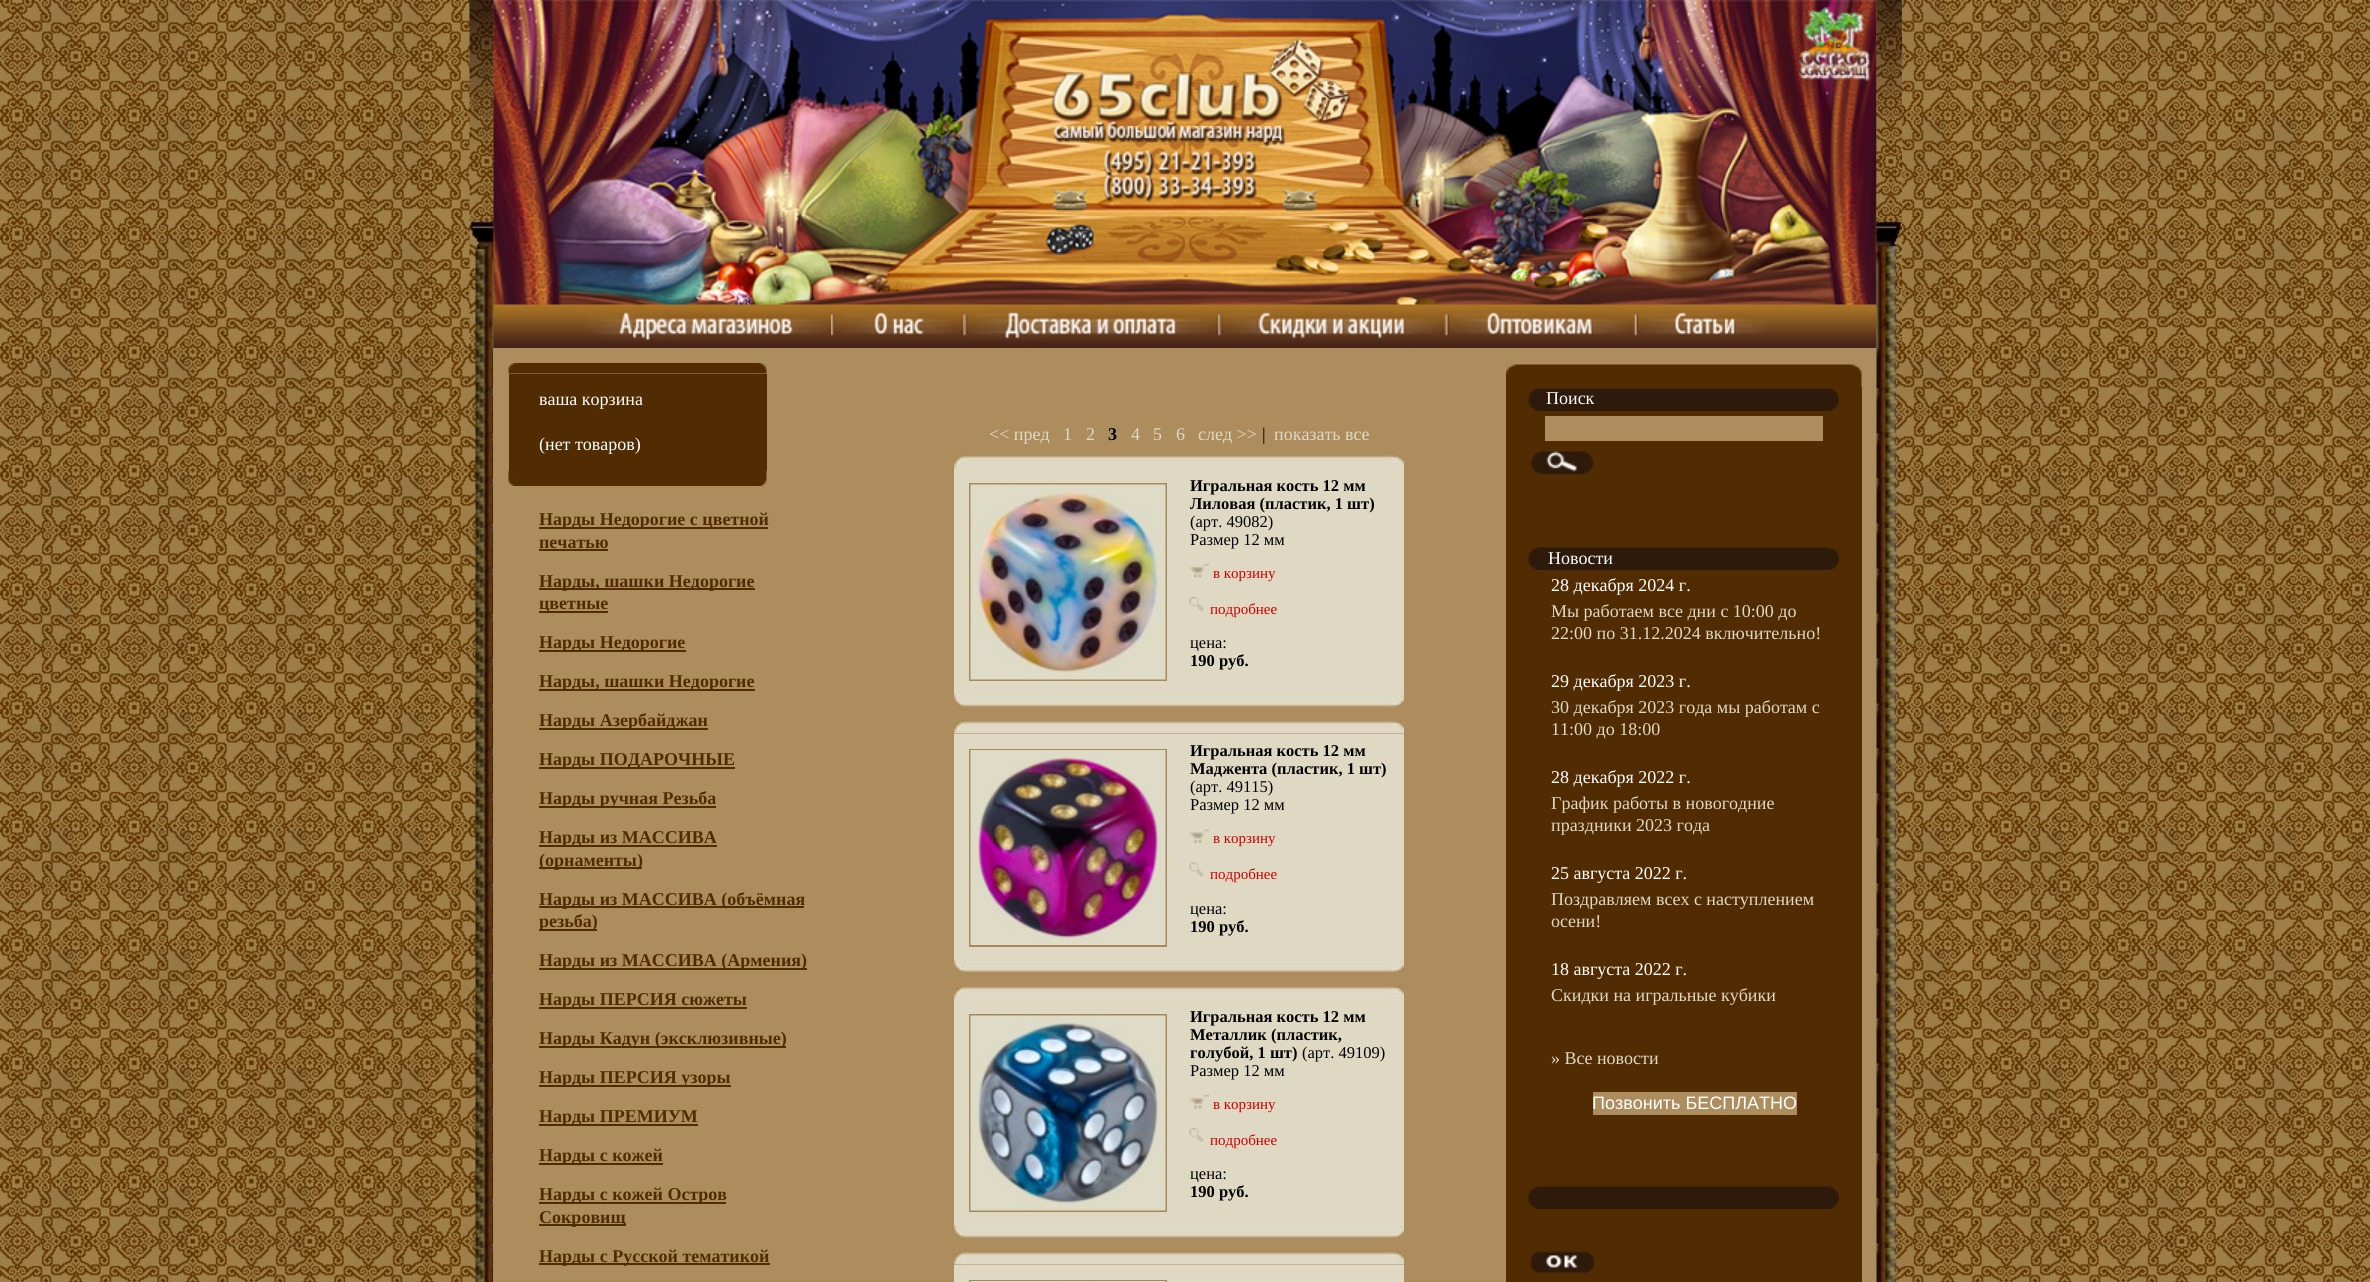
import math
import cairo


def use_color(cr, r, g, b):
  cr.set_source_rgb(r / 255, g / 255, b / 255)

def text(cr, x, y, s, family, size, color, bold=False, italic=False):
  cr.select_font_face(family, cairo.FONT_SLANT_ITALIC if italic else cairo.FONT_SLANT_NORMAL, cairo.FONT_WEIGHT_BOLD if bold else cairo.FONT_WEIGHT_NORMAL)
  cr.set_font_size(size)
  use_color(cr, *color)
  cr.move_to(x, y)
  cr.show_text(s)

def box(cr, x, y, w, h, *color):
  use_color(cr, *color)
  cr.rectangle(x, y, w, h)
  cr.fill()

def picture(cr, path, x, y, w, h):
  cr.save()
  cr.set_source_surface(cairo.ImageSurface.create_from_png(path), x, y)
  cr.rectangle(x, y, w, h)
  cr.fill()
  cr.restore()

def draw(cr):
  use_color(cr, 255, 255, 255)
  cr.paint()
  picture(cr, "img_01.png", 0, 0, 2370, 1282)
  picture(cr, "img_02.png", 469, 0, 25, 348)
  picture(cr, "img_03.png", 493, 0, 1384, 348)
  picture(cr, "img_04.png", 1876, 0, 26, 348)
  picture(cr, "img_05.png", 475, 348, 18, 934)
  box(cr, 493, 348, 1384, 934, 173, 141, 94)
  picture(cr, "img_06.png", 508, 363, 259, 11)
  box(cr, 509, 374, 258, 97, 81, 44, 2)
  picture(cr, "img_07.png", 508, 471, 259, 15)
  box(cr, 539, 527, 229, 2, 81, 44, 2)
  box(cr, 539, 549, 69, 2, 81, 44, 2)
  box(cr, 539, 588, 216, 2, 81, 44, 2)
  box(cr, 539, 611, 69, 2, 81, 44, 2)
  box(cr, 539, 650, 147, 2, 81, 44, 2)
  box(cr, 539, 689, 216, 2, 81, 44, 2)
  box(cr, 539, 728, 169, 2, 81, 44, 2)
  box(cr, 539, 767, 196, 2, 81, 44, 2)
  box(cr, 539, 806, 177, 2, 81, 44, 2)
  box(cr, 539, 845, 178, 2, 81, 44, 2)
  box(cr, 539, 867, 103, 2, 81, 44, 2)
  box(cr, 539, 906, 265, 2, 81, 44, 2)
  box(cr, 539, 929, 58, 2, 81, 44, 2)
  box(cr, 539, 968, 268, 2, 81, 44, 2)
  box(cr, 539, 1007, 208, 2, 81, 44, 2)
  box(cr, 539, 1046, 247, 2, 81, 44, 2)
  box(cr, 539, 1085, 192, 2, 81, 44, 2)
  box(cr, 539, 1124, 159, 2, 81, 44, 2)
  box(cr, 539, 1163, 124, 2, 81, 44, 2)
  box(cr, 539, 1202, 187, 2, 81, 44, 2)
  box(cr, 539, 1224, 87, 2, 81, 44, 2)
  box(cr, 539, 1263, 231, 2, 81, 44, 2)
  picture(cr, "img_08.png", 954, 453, 450, 15)
  box(cr, 954, 468, 450, 227, 223, 217, 196)
  cr.rectangle(970, 484, 196, 196)
  use_color(cr, 168, 137, 92)
  cr.stroke()
  picture(cr, "img_09.png", 970, 484, 196, 196)
  picture(cr, "img_10.png", 1189, 564, 20, 14)
  picture(cr, "img_11.png", 1189, 597, 15, 14)
  picture(cr, "img_12.png", 954, 694, 450, 13)
  picture(cr, "img_13.png", 954, 718, 450, 16)
  box(cr, 954, 734, 450, 226, 223, 217, 196)
  cr.rectangle(970, 750, 196, 196)
  use_color(cr, 168, 137, 92)
  cr.stroke()
  picture(cr, "img_14.png", 970, 750, 196, 195)
  picture(cr, "img_15.png", 1189, 829, 20, 14)
  picture(cr, "img_16.png", 1189, 862, 15, 15)
  picture(cr, "img_17.png", 954, 960, 450, 13)
  picture(cr, "img_08.png", 954, 984, 450, 15)
  box(cr, 954, 999, 450, 227, 223, 217, 196)
  cr.rectangle(970, 1015, 196, 196)
  use_color(cr, 168, 137, 92)
  cr.stroke()
  picture(cr, "img_18.png", 970, 1015, 196, 196)
  picture(cr, "img_10.png", 1189, 1095, 20, 14)
  picture(cr, "img_11.png", 1189, 1128, 15, 14)
  picture(cr, "img_12.png", 954, 1225, 450, 13)
  picture(cr, "img_13.png", 954, 1249, 450, 16)
  box(cr, 954, 1265, 450, 17, 223, 217, 196)
  cr.rectangle(970, 1281, 196, 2)
  use_color(cr, 168, 137, 92)
  cr.stroke()
  picture(cr, "img_19.png", 970, 1281, 196, 1)
  picture(cr, "img_20.png", 1506, 364, 356, 23)
  box(cr, 1506, 387, 356, 895, 81, 44, 2)
  picture(cr, "img_21.png", 1528, 388, 311, 23)
  box(cr, 1545, 416, 278, 25, 173, 141, 94)
  picture(cr, "img_22.png", 1531, 451, 63, 24)
  picture(cr, "img_21.png", 1528, 547, 311, 23)
  box(cr, 1593, 1092, 204, 23, 173, 141, 94)
  picture(cr, "img_21.png", 1528, 1186, 311, 23)
  picture(cr, "img_23.png", 1530, 1251, 65, 23)
  picture(cr, "img_24.png", 1876, 348, 21, 934)
  text(cr, 539, 405, "ваша корзина", "Liberation Serif", 18, (255, 255, 255))
  text(cr, 539, 450, "(нет товаров)", "Liberation Serif", 18, (255, 255, 255))
  text(cr, 539, 525, "Нарды Недорогие с цветной", "Liberation Serif", 18, (81, 44, 2), bold=True)
  text(cr, 539, 548, "печатью", "Liberation Serif", 18, (81, 44, 2), bold=True)
  text(cr, 539, 587, "Нарды, шашки Недорогие", "Liberation Serif", 18, (81, 44, 2), bold=True)
  text(cr, 539, 609, "цветные", "Liberation Serif", 18, (81, 44, 2), bold=True)
  text(cr, 539, 648, "Нарды Недорогие", "Liberation Serif", 18, (81, 44, 2), bold=True)
  text(cr, 539, 687, "Нарды, шашки Недорогие", "Liberation Serif", 18, (81, 44, 2), bold=True)
  text(cr, 539, 726, "Нарды Азербайджан", "Liberation Serif", 18, (81, 44, 2), bold=True)
  text(cr, 539, 765, "Нарды ПОДАРОЧНЫЕ", "Liberation Serif", 18, (81, 44, 2), bold=True)
  text(cr, 539, 804, "Нарды ручная Резьба", "Liberation Serif", 18, (81, 44, 2), bold=True)
  text(cr, 539, 843, "Нарды из МАССИВА", "Liberation Serif", 18, (81, 44, 2), bold=True)
  text(cr, 539, 866, "(орнаменты)", "Liberation Serif", 18, (81, 44, 2), bold=True)
  text(cr, 539, 905, "Нарды из МАССИВА (объёмная", "Liberation Serif", 18, (81, 44, 2), bold=True)
  text(cr, 539, 927, "резьба)", "Liberation Serif", 18, (81, 44, 2), bold=True)
  text(cr, 539, 966, "Нарды из МАССИВА (Армения)", "Liberation Serif", 18, (81, 44, 2), bold=True)
  text(cr, 539, 1005, "Нарды ПЕРСИЯ сюжеты", "Liberation Serif", 18, (81, 44, 2), bold=True)
  text(cr, 539, 1044, "Нарды Кадун (эксклюзивные)", "Liberation Serif", 18, (81, 44, 2), bold=True)
  text(cr, 539, 1083, "Нарды ПЕРСИЯ узоры", "Liberation Serif", 18, (81, 44, 2), bold=True)
  text(cr, 539, 1122, "Нарды ПРЕМИУМ", "Liberation Serif", 18, (81, 44, 2), bold=True)
  text(cr, 539, 1161, "Нарды с кожей", "Liberation Serif", 18, (81, 44, 2), bold=True)
  text(cr, 539, 1200, "Нарды с кожей Остров", "Liberation Serif", 18, (81, 44, 2), bold=True)
  text(cr, 539, 1223, "Сокровищ", "Liberation Serif", 18, (81, 44, 2), bold=True)
  text(cr, 539, 1262, "Нарды с Русской тематикой", "Liberation Serif", 18, (81, 44, 2), bold=True)
  text(cr, 989, 440, "<< пред", "Liberation Serif", 18, (223, 217, 196))
  text(cr, 1063, 440, "1", "Liberation Serif", 18, (223, 217, 196))
  text(cr, 1086, 440, "2", "Liberation Serif", 18, (223, 217, 196))
  text(cr, 1108, 440, "3", "Liberation Serif", 18, (0, 0, 0), bold=True)
  text(cr, 1131, 440, "4", "Liberation Serif", 18, (223, 217, 196))
  text(cr, 1153, 440, "5", "Liberation Serif", 18, (223, 217, 196))
  text(cr, 1176, 440, "6", "Liberation Serif", 18, (223, 217, 196))
  text(cr, 1198, 440, "след >>", "Liberation Serif", 18, (223, 217, 196))
  text(cr, 1262, 440, "|", "Liberation Serif", 18, (0, 0, 0))
  text(cr, 1274, 440, "показать все", "Liberation Serif", 18, (223, 217, 196))
  text(cr, 1190, 491, "Игральная кость 12 мм", "Liberation Serif", 16.5, (0, 0, 0), bold=True)
  text(cr, 1190, 509, "Лиловая (пластик, 1 шт)", "Liberation Serif", 16.5, (0, 0, 0), bold=True)
  text(cr, 1190, 527, "(арт. 49082)", "Liberation Serif", 16.5, (0, 0, 0))
  text(cr, 1190, 545, "Размер 12 мм", "Liberation Serif", 16.5, (0, 0, 0))
  text(cr, 1213, 578, "в корзину", "Liberation Serif", 15, (204, 0, 0))
  text(cr, 1210, 614, "подробнее", "Liberation Serif", 15, (204, 0, 0))
  text(cr, 1190, 648, "цена:", "Liberation Serif", 16.5, (0, 0, 0))
  text(cr, 1190, 666, "190 руб.", "Liberation Serif", 16.5, (0, 0, 0), bold=True)
  text(cr, 1190, 756, "Игральная кость 12 мм", "Liberation Serif", 16.5, (0, 0, 0), bold=True)
  text(cr, 1190, 774, "Маджента (пластик, 1 шт)", "Liberation Serif", 16.5, (0, 0, 0), bold=True)
  text(cr, 1190, 792, "(арт. 49115)", "Liberation Serif", 16.5, (0, 0, 0))
  text(cr, 1190, 810, "Размер 12 мм", "Liberation Serif", 16.5, (0, 0, 0))
  text(cr, 1213, 843, "в корзину", "Liberation Serif", 15, (204, 0, 0))
  text(cr, 1210, 879, "подробнее", "Liberation Serif", 15, (204, 0, 0))
  text(cr, 1190, 914, "цена:", "Liberation Serif", 16.5, (0, 0, 0))
  text(cr, 1190, 932, "190 руб.", "Liberation Serif", 16.5, (0, 0, 0), bold=True)
  text(cr, 1190, 1022, "Игральная кость 12 мм", "Liberation Serif", 16.5, (0, 0, 0), bold=True)
  text(cr, 1190, 1040, "Металлик (пластик,", "Liberation Serif", 16.5, (0, 0, 0), bold=True)
  text(cr, 1190, 1058, "голубой, 1 шт)", "Liberation Serif", 16.5, (0, 0, 0), bold=True)
  text(cr, 1302, 1058, "(арт. 49109)", "Liberation Serif", 16.5, (0, 0, 0))
  text(cr, 1190, 1076, "Размер 12 мм", "Liberation Serif", 16.5, (0, 0, 0))
  text(cr, 1213, 1109, "в корзину", "Liberation Serif", 15, (204, 0, 0))
  text(cr, 1210, 1145, "подробнее", "Liberation Serif", 15, (204, 0, 0))
  text(cr, 1190, 1179, "цена:", "Liberation Serif", 16.5, (0, 0, 0))
  text(cr, 1190, 1197, "190 руб.", "Liberation Serif", 16.5, (0, 0, 0), bold=True)
  text(cr, 1546, 404, "Поиск", "Liberation Serif", 18, (255, 255, 255))
  text(cr, 1548, 564, "Новости", "Liberation Serif", 18, (255, 255, 255))
  text(cr, 1551, 591, "28 декабря 2024 г.", "Liberation Serif", 18, (255, 255, 255))
  text(cr, 1551, 617, "Мы работаем все дни с 10:00 до", "Liberation Serif", 18, (223, 217, 196))
  text(cr, 1551, 639, "22:00 по 31.12.2024 включительно!", "Liberation Serif", 18, (223, 217, 196))
  text(cr, 1551, 687, "29 декабря 2023 г.", "Liberation Serif", 18, (255, 255, 255))
  text(cr, 1551, 713, "30 декабря 2023 года мы работам с", "Liberation Serif", 18, (223, 217, 196))
  text(cr, 1551, 735, "11:00 до 18:00", "Liberation Serif", 18, (223, 217, 196))
  text(cr, 1551, 783, "28 декабря 2022 г.", "Liberation Serif", 18, (255, 255, 255))
  text(cr, 1551, 809, "График работы в новогодние", "Liberation Serif", 18, (223, 217, 196))
  text(cr, 1551, 831, "праздники 2023 года", "Liberation Serif", 18, (223, 217, 196))
  text(cr, 1551, 879, "25 августа 2022 г.", "Liberation Serif", 18, (255, 255, 255))
  text(cr, 1551, 905, "Поздравляем всех с наступлением", "Liberation Serif", 18, (223, 217, 196))
  text(cr, 1551, 927, "осени!", "Liberation Serif", 18, (223, 217, 196))
  text(cr, 1551, 975, "18 августа 2022 г.", "Liberation Serif", 18, (255, 255, 255))
  text(cr, 1551, 1001, "Скидки на игральные кубики", "Liberation Serif", 18, (223, 217, 196))
  text(cr, 1551, 1064, "» Все новости", "Liberation Serif", 18, (223, 217, 196))
  text(cr, 1592, 1109, "Позвонить БЕСПЛАТНО", "Liberation Sans", 18, (255, 255, 255))


surface = cairo.ImageSurface(cairo.FORMAT_RGB24, 2370, 1282)
cr = cairo.Context(surface)
options = cairo.FontOptions()
options.set_hint_metrics(cairo.HINT_METRICS_OFF)
options.set_hint_style(cairo.HINT_STYLE_NONE)
cr.set_font_options(options)
cr.set_miter_limit(4)
draw(cr)
surface.write_to_png("out.png")
